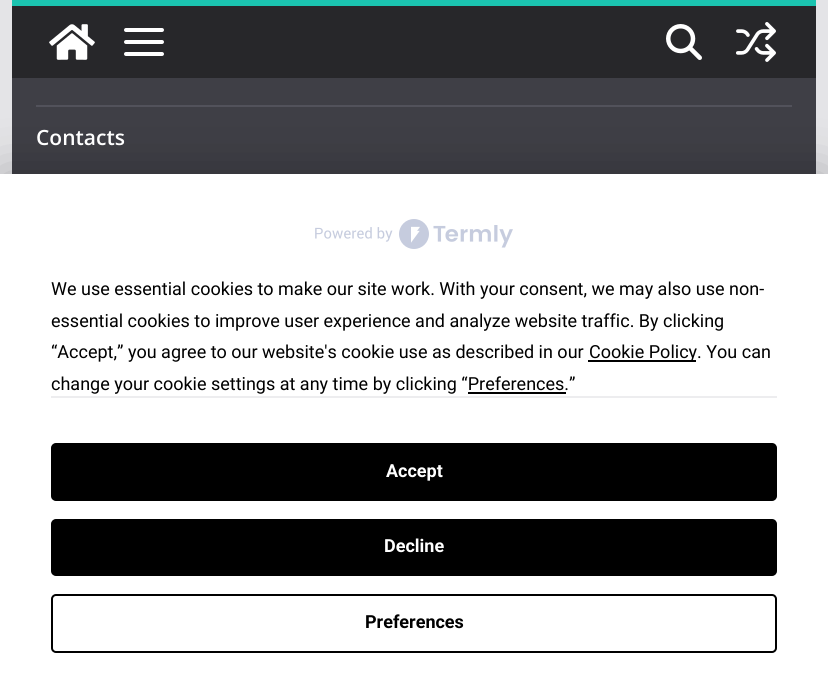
import math
import cairo


def use_color(cr, r, g, b):
  cr.set_source_rgb(r / 255, g / 255, b / 255)

def text(cr, x, y, s, family, size, color, bold=False, italic=False):
  cr.select_font_face(family, cairo.FONT_SLANT_ITALIC if italic else cairo.FONT_SLANT_NORMAL, cairo.FONT_WEIGHT_BOLD if bold else cairo.FONT_WEIGHT_NORMAL)
  cr.set_font_size(size)
  use_color(cr, *color)
  cr.move_to(x, y)
  cr.show_text(s)

def box(cr, x, y, w, h, *color):
  use_color(cr, *color)
  cr.rectangle(x, y, w, h)
  cr.fill()

def round_rect(cr, x, y, w, h, r):
  cr.new_sub_path()
  for i, (u, v) in enumerate([(x + w - r, y + h - r), (x + r, y + h - r), (x + r, y + r), (x + w - r, y + r)]):
    cr.arc(u, v, r, i * math.pi / 2, (i + 1) * math.pi / 2)
  cr.close_path()

def shadow(cr, x, y, w, h, r, blur, alpha):
  cr.push_group_with_content(cairo.CONTENT_ALPHA)
  cr.set_operator(cairo.OPERATOR_SOURCE)
  for i in range(15, -16, -2):
    e = blur * i / 6
    if min(w, h) + 2 * e > 0:
      cr.set_source_rgba(0, 0, 0, alpha * math.erfc((i - 1) / 8.5) / 2)
      round_rect(cr, x - e, y - e, w + 2 * e, h + 2 * e, max(0, min(r + e + blur * .6, min(w, h) / 2 + e)))
      cr.fill()
  cr.mask(cr.pop_group())

def picture(cr, path, x, y, w, h):
  cr.save()
  cr.set_source_surface(cairo.ImageSurface.create_from_png(path), x, y)
  cr.rectangle(x, y, w, h)
  cr.fill()
  cr.restore()

def draw(cr):
  use_color(cr, 228, 228, 231)
  cr.paint()
  box(cr, 12, 6, 804, 72, 39, 39, 42)
  box(cr, 12, 0, 804, 6, 27, 196, 176)
  picture(cr, "img_01.png", 49, 24, 46, 36)
  picture(cr, "img_02.png", 124, 28, 40, 28)
  picture(cr, "img_03.png", 666, 24, 36, 36)
  picture(cr, "img_04.png", 736, 22, 40, 40)
  box(cr, 12, 78, 804, 96, 63, 63, 70)
  box(cr, 36, 105, 756, 2, 82, 82, 91)
  use_color(cr, 0, 0, 0)
  shadow(cr, 0, 174, 828, 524, 0, 26, 0.25)
  box(cr, 0, 174, 828, 523, 255, 255, 255)
  picture(cr, "img_05.png", 315, 219, 198, 30)
  box(cr, 588, 360, 108, 2, 0, 0, 0)
  box(cr, 468, 392, 98, 2, 0, 0, 0)
  box(cr, 51, 396, 726, 2, 237, 237, 239)
  use_color(cr, 0, 0, 0)
  round_rect(cr, 52, 444, 724, 56, 4)
  cr.fill_preserve()
  cr.stroke()
  round_rect(cr, 52, 520, 724, 55, 4)
  cr.fill_preserve()
  cr.stroke()
  round_rect(cr, 52, 595, 724, 57, 4)
  cr.stroke()
  text(cr, 36, 145, "Contacts", "Open Sans SemiBold", 21, (255, 255, 255))
  text(cr, 51, 295, "We use essential cookies to make our site work. With your consent, we may also use non-", "Roboto", 18, (0, 0, 0))
  text(cr, 51, 327, "essential cookies to improve user experience and analyze website traffic. By clicking", "Roboto", 18, (0, 0, 0))
  text(cr, 51, 358, "“Accept,” you agree to our website's cookie use as described in our", "Roboto", 18, (0, 0, 0))
  text(cr, 589, 358, "Cookie Policy. You can", "Roboto", 18, (0, 0, 0))
  text(cr, 51, 390, "change your cookie settings at any time by clicking “Preferences.”", "Roboto", 18, (0, 0, 0))
  text(cr, 386, 477, "Accept", "Roboto", 18, (255, 255, 255), bold=True)
  text(cr, 384, 552, "Decline", "Roboto", 18, (255, 255, 255), bold=True)
  text(cr, 365, 628, "Preferences", "Roboto", 18, (0, 0, 0), bold=True)


surface = cairo.ImageSurface(cairo.FORMAT_RGB24, 828, 697)
cr = cairo.Context(surface)
options = cairo.FontOptions()
options.set_hint_metrics(cairo.HINT_METRICS_OFF)
options.set_hint_style(cairo.HINT_STYLE_NONE)
cr.set_font_options(options)
cr.set_miter_limit(4)
draw(cr)
surface.write_to_png("out.png")
